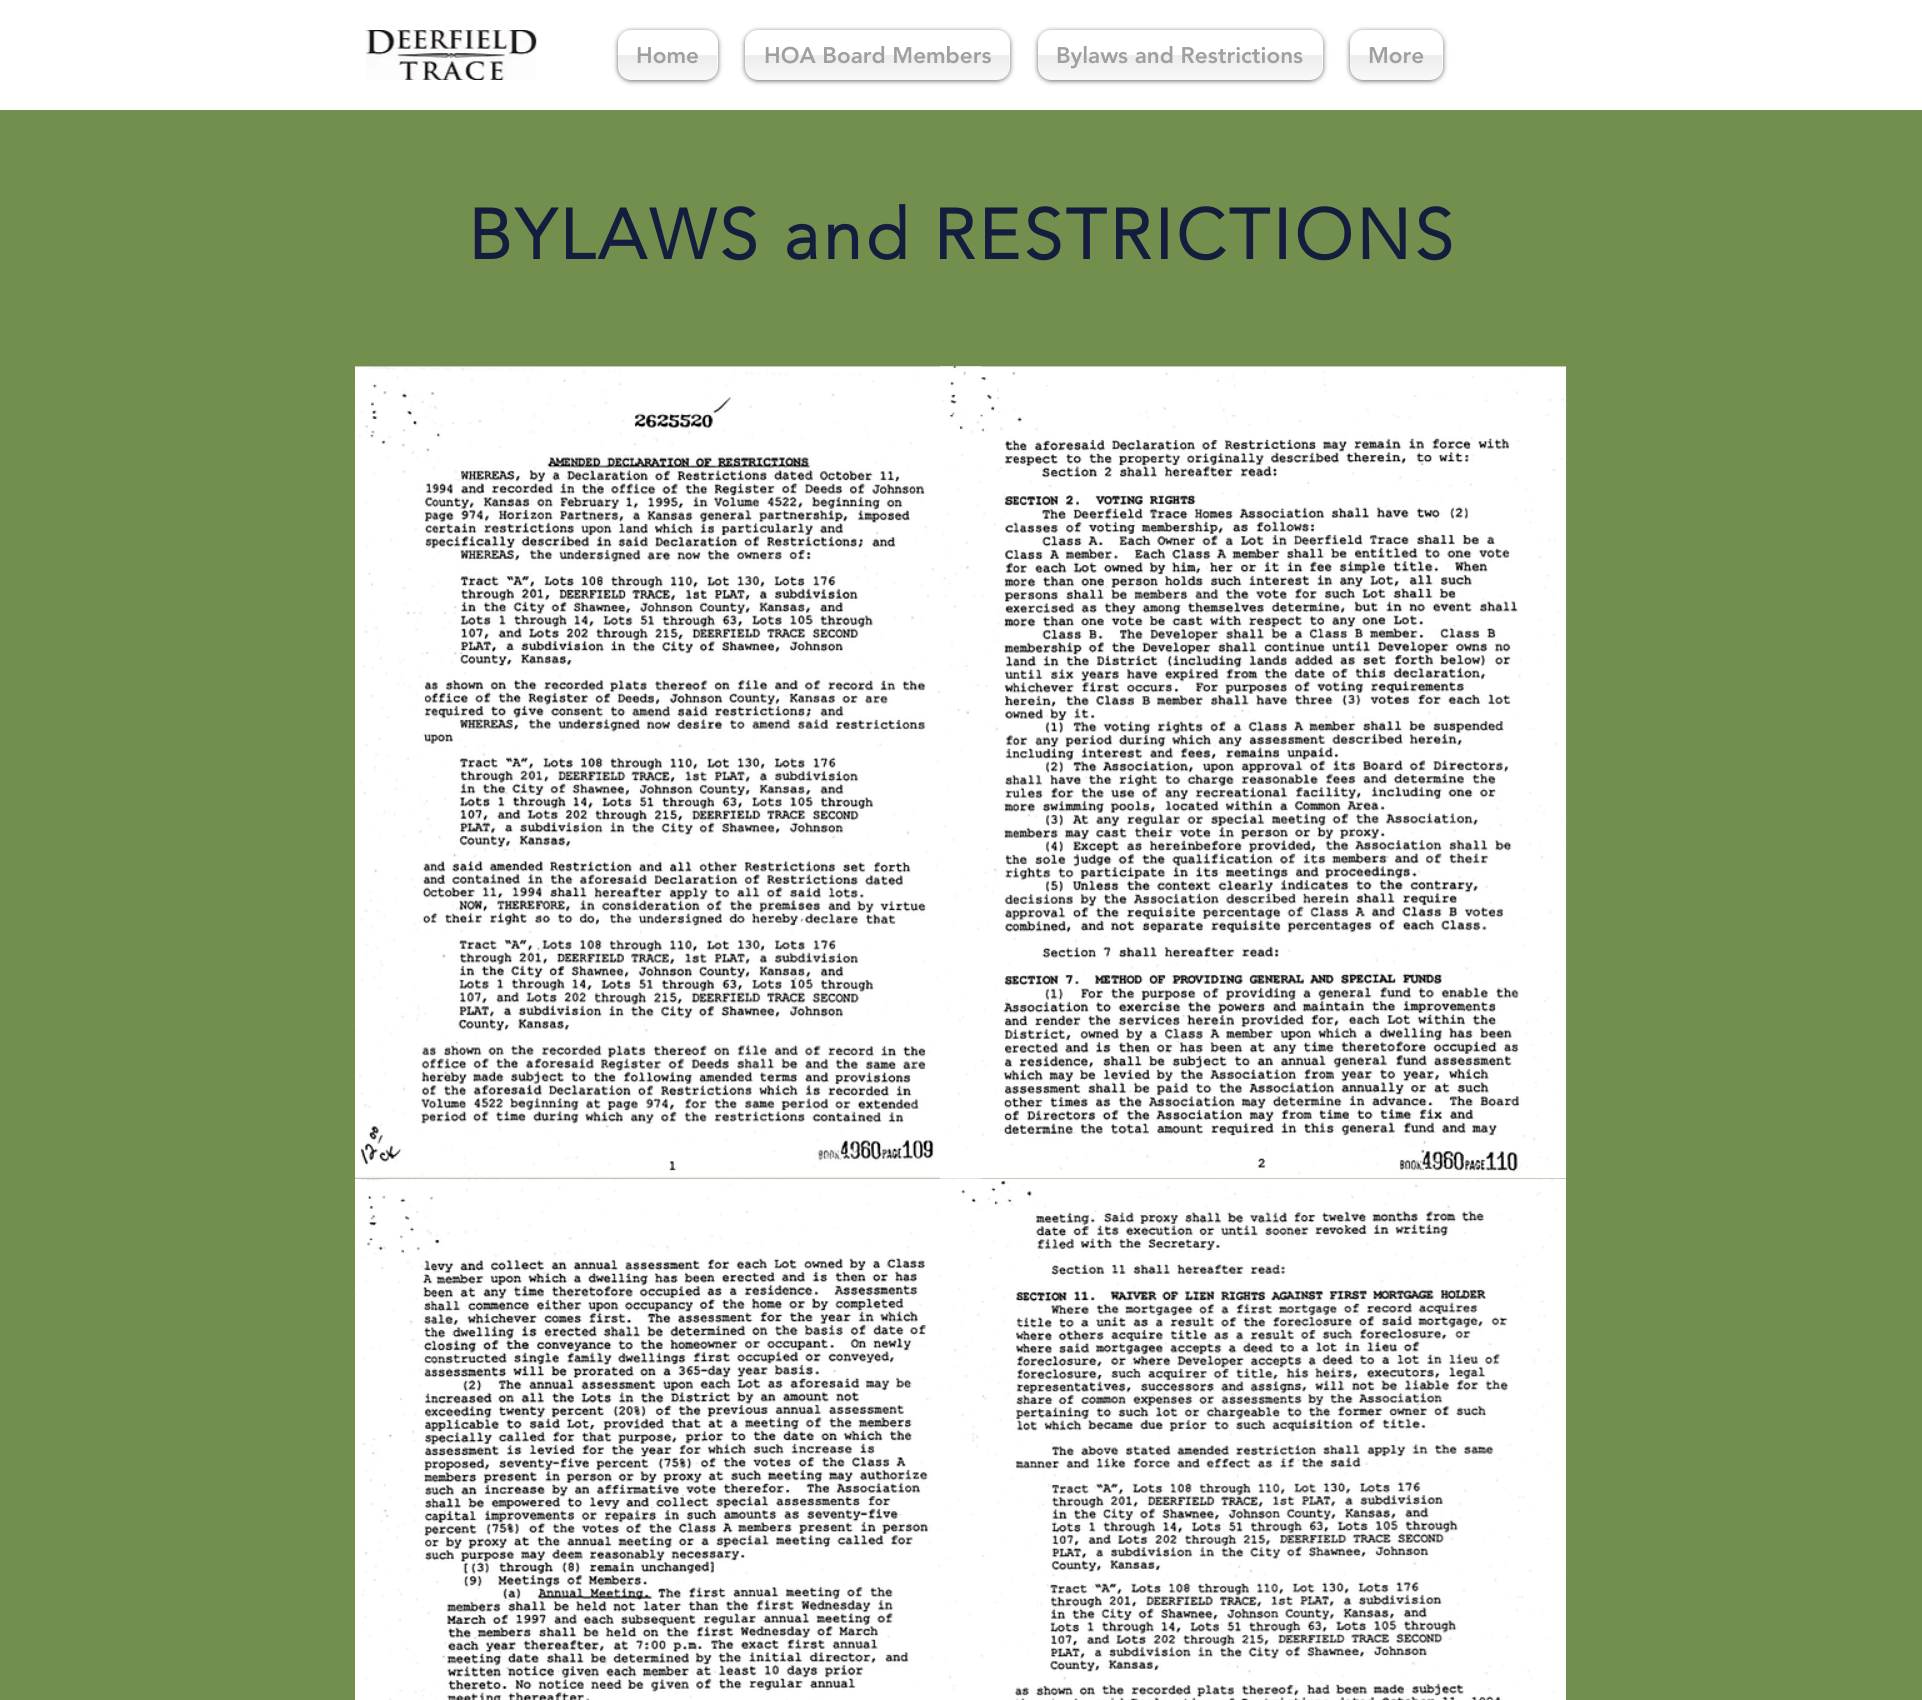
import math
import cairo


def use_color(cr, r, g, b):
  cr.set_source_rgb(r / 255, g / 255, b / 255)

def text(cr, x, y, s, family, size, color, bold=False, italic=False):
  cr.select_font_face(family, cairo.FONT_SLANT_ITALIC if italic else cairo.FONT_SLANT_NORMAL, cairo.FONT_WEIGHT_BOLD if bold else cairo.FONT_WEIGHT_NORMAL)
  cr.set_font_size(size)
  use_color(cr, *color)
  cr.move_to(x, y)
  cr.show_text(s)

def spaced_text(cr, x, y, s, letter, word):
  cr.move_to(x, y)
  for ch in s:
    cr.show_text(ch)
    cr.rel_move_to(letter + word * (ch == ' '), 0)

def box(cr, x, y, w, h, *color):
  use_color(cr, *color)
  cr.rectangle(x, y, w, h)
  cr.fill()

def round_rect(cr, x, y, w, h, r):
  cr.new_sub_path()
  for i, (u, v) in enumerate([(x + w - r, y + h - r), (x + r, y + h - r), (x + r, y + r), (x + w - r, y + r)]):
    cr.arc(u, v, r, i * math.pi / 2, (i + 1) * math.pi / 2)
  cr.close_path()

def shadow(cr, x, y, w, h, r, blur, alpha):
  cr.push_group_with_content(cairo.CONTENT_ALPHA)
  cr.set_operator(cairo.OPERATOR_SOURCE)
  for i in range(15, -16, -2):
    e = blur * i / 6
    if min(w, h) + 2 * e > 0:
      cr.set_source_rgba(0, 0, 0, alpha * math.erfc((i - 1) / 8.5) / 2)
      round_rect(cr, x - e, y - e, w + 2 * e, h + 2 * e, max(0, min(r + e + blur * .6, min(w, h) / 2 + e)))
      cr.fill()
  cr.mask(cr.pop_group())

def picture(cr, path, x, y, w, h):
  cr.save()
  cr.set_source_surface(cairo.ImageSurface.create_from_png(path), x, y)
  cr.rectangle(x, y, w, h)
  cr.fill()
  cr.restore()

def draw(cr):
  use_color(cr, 114, 143, 77)
  cr.paint()
  box(cr, 0, 0, 1922, 110, 255, 255, 255)
  picture(cr, "img_01.png", 366, 30, 171, 50)
  use_color(cr, 0, 0, 0)
  shadow(cr, 618, 31, 100, 50, 13, 2.5, 0.6)
  use_color(cr, 255, 255, 255)
  round_rect(cr, 618, 30, 100, 50, 13)
  cr.fill()
  picture(cr, "img_02.png", 617, 55, 100, 25)
  use_color(cr, 0, 0, 0)
  shadow(cr, 745, 31, 265, 50, 13, 2.5, 0.6)
  use_color(cr, 255, 255, 255)
  round_rect(cr, 745, 30, 265, 50, 13)
  cr.fill()
  picture(cr, "img_03.png", 745, 55, 265, 25)
  use_color(cr, 0, 0, 0)
  shadow(cr, 1038, 31, 285, 50, 13, 2.5, 0.6)
  use_color(cr, 255, 255, 255)
  round_rect(cr, 1038, 30, 285, 50, 13)
  cr.fill()
  picture(cr, "img_04.png", 1037, 55, 285, 25)
  use_color(cr, 0, 0, 0)
  shadow(cr, 1350, 31, 93, 50, 13, 2.5, 0.6)
  use_color(cr, 255, 255, 255)
  round_rect(cr, 1350, 30, 93, 50, 13)
  cr.fill()
  picture(cr, "img_05.png", 1350, 55, 92, 25)
  picture(cr, "img_06.png", 355, 366, 627, 813)
  picture(cr, "img_07.png", 940, 366, 627, 813)
  picture(cr, "img_08.png", 355, 1178, 626, 522)
  picture(cr, "img_09.png", 940, 1179, 626, 521)
  text(cr, 636, 63, "Home", "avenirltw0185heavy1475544 Black", 22.5, (160, 160, 159))
  text(cr, 764, 63, "HOA Board Members", "avenirltw0185heavy1475544 Black", 22.5, (160, 160, 159))
  text(cr, 1056, 63, "Bylaws and Restrictions", "avenirltw0185heavy1475544 Black", 22.5, (160, 160, 159))
  text(cr, 1368, 63, "More", "avenirltw0185heavy1475544 Black", 22.5, (160, 160, 159))
  cr.select_font_face("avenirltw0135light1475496", cairo.FONT_SLANT_NORMAL, cairo.FONT_WEIGHT_BOLD)
  cr.set_font_size(70)
  use_color(cr, 20, 29, 61)
  spaced_text(cr, 468, 259, "BYLAWS and RESTRICTIONS", 3.5, 0)


surface = cairo.ImageSurface(cairo.FORMAT_RGB24, 1922, 1700)
cr = cairo.Context(surface)
options = cairo.FontOptions()
options.set_hint_metrics(cairo.HINT_METRICS_OFF)
options.set_hint_style(cairo.HINT_STYLE_NONE)
cr.set_font_options(options)
cr.set_miter_limit(4)
draw(cr)
surface.write_to_png("out.png")
